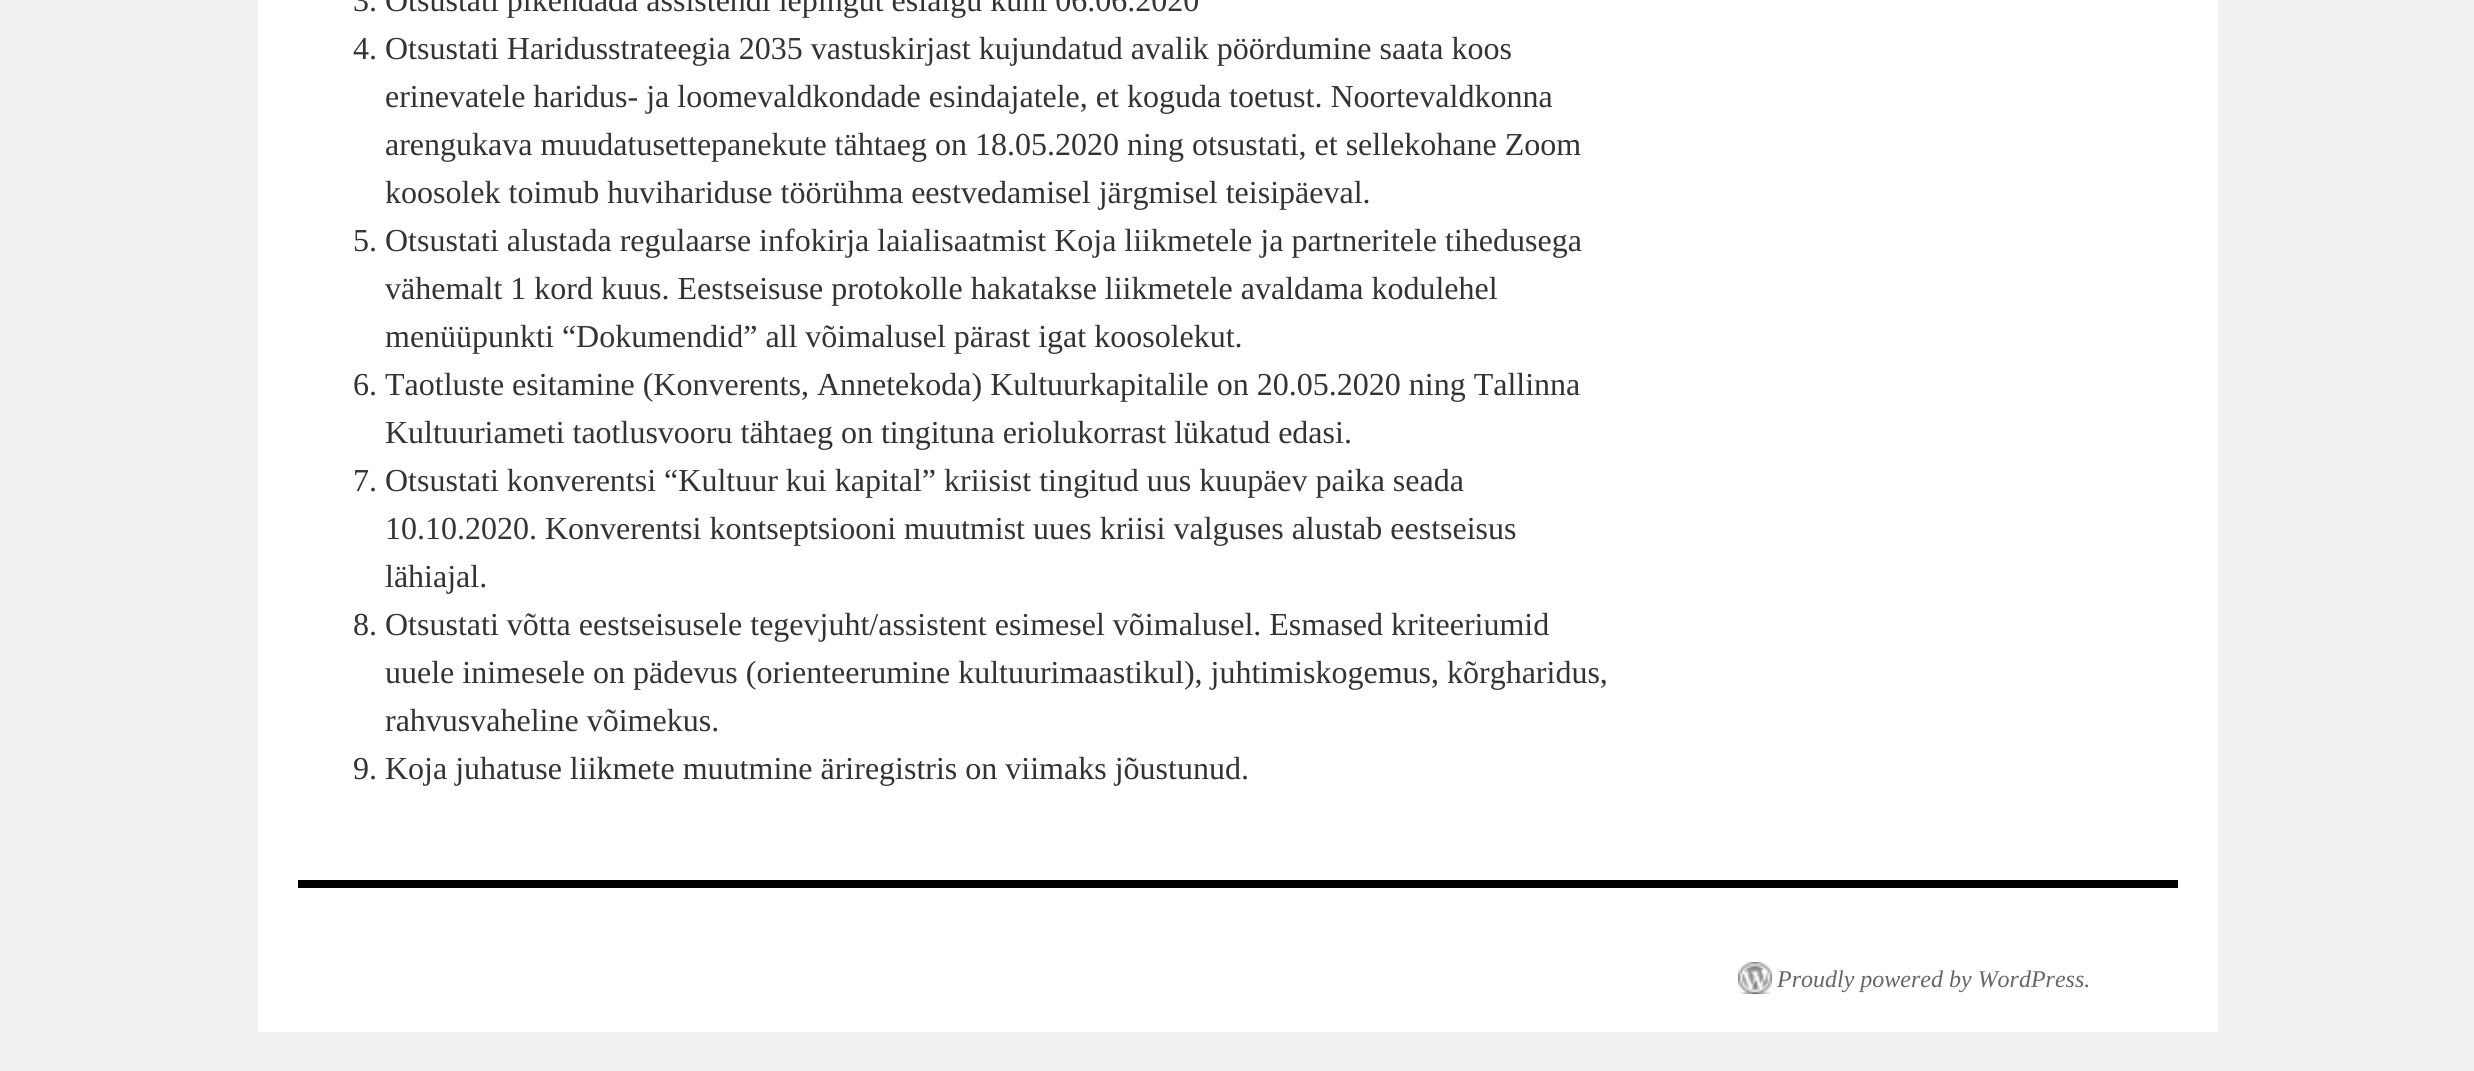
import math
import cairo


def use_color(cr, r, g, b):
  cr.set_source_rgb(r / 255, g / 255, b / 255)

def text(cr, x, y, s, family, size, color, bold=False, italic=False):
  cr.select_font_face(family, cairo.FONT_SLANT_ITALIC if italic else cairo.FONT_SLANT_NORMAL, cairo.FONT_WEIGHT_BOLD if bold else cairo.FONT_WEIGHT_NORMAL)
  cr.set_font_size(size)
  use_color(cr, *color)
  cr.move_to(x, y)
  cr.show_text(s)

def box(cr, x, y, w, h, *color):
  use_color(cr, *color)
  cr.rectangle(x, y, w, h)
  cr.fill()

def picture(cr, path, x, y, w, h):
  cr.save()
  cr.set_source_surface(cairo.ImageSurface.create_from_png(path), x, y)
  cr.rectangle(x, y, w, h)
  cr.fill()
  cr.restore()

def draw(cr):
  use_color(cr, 241, 241, 241)
  cr.paint()
  box(cr, 258, 0, 1960, 1032, 255, 255, 255)
  box(cr, 298, 880, 1880, 8, 0, 0, 0)
  picture(cr, "img_01.png", 1738, 962, 34, 32)
  text(cr, 353, 11, "3. Otsustati pikendada assistendi lepingut esialgu kuni 06.06.2020", "Liberation Serif", 32, (51, 51, 51))
  text(cr, 353, 59, "4. Otsustati Haridusstrateegia 2035 vastuskirjast kujundatud avalik pöördumine saata koos", "Liberation Serif", 32, (51, 51, 51))
  text(cr, 385, 107, "erinevatele haridus- ja loomevaldkondade esindajatele, et koguda toetust. Noortevaldkonna", "Liberation Serif", 32, (51, 51, 51))
  text(cr, 385, 155, "arengukava muudatusettepanekute tähtaeg on 18.05.2020 ning otsustati, et sellekohane Zoom", "Liberation Serif", 32, (51, 51, 51))
  text(cr, 385, 203, "koosolek toimub huvihariduse töörühma eestvedamisel järgmisel teisipäeval.", "Liberation Serif", 32, (51, 51, 51))
  text(cr, 353, 251, "5. Otsustati alustada regulaarse infokirja laialisaatmist Koja liikmetele ja partneritele tihedusega", "Liberation Serif", 32, (51, 51, 51))
  text(cr, 385, 299, "vähemalt 1 kord kuus. Eestseisuse protokolle hakatakse liikmetele avaldama kodulehel", "Liberation Serif", 32, (51, 51, 51))
  text(cr, 385, 347, "menüüpunkti “Dokumendid” all võimalusel pärast igat koosolekut.", "Liberation Serif", 32, (51, 51, 51))
  text(cr, 353, 395, "6. Taotluste esitamine (Konverents, Annetekoda) Kultuurkapitalile on 20.05.2020 ning Tallinna", "Liberation Serif", 32, (51, 51, 51))
  text(cr, 385, 443, "Kultuuriameti taotlusvooru tähtaeg on tingituna eriolukorrast lükatud edasi.", "Liberation Serif", 32, (51, 51, 51))
  text(cr, 353, 491, "7. Otsustati konverentsi “Kultuur kui kapital” kriisist tingitud uus kuupäev paika seada", "Liberation Serif", 32, (51, 51, 51))
  text(cr, 385, 539, "10.10.2020. Konverentsi kontseptsiooni muutmist uues kriisi valguses alustab eestseisus", "Liberation Serif", 32, (51, 51, 51))
  text(cr, 385, 587, "lähiajal.", "Liberation Serif", 32, (51, 51, 51))
  text(cr, 353, 635, "8. Otsustati võtta eestseisusele tegevjuht/assistent esimesel võimalusel. Esmased kriteeriumid", "Liberation Serif", 32, (51, 51, 51))
  text(cr, 385, 683, "uuele inimesele on pädevus (orienteerumine kultuurimaastikul), juhtimiskogemus, kõrgharidus,", "Liberation Serif", 32, (51, 51, 51))
  text(cr, 385, 731, "rahvusvaheline võimekus.", "Liberation Serif", 32, (51, 51, 51))
  text(cr, 353, 779, "9. Koja juhatuse liikmete muutmine äriregistris on viimaks jõustunud.", "Liberation Serif", 32, (51, 51, 51))
  text(cr, 1777, 987, "Proudly powered by WordPress.", "Liberation Serif", 24, (102, 102, 102), italic=True)


surface = cairo.ImageSurface(cairo.FORMAT_RGB24, 2474, 1071)
cr = cairo.Context(surface)
options = cairo.FontOptions()
options.set_hint_metrics(cairo.HINT_METRICS_OFF)
options.set_hint_style(cairo.HINT_STYLE_NONE)
cr.set_font_options(options)
cr.set_miter_limit(4)
draw(cr)
surface.write_to_png("out.png")
